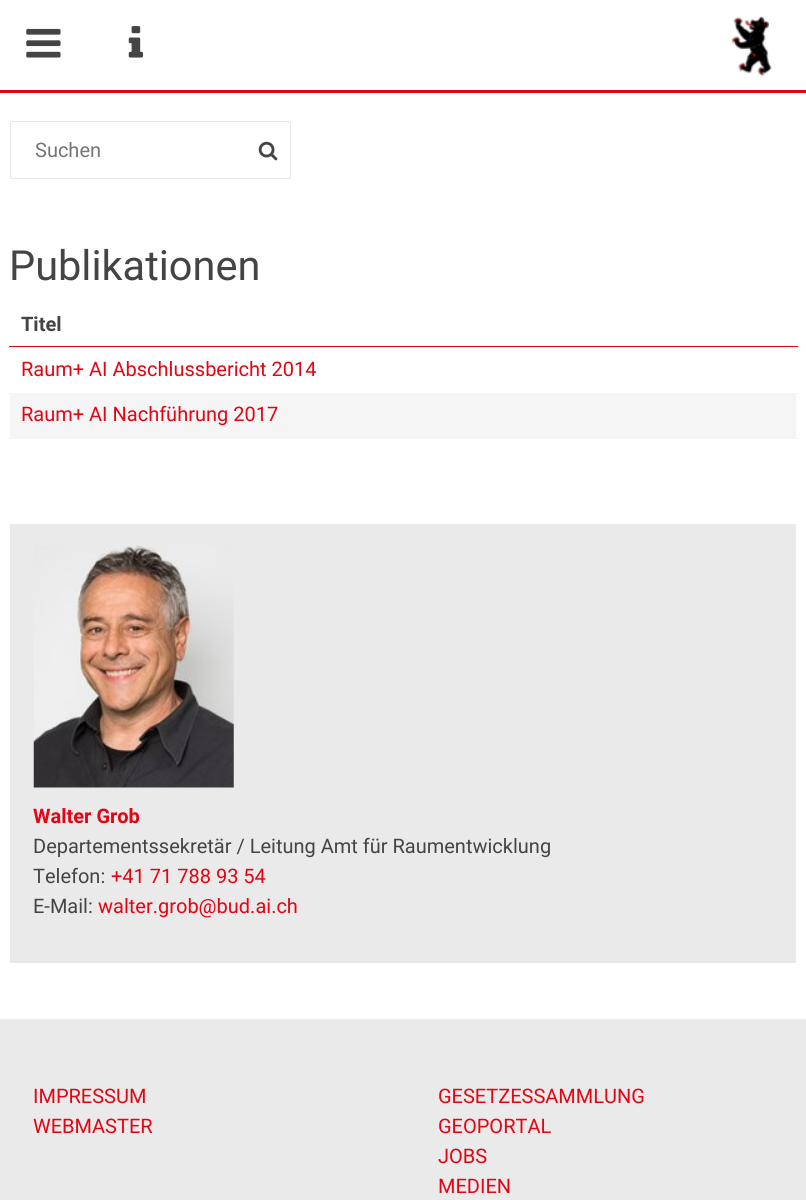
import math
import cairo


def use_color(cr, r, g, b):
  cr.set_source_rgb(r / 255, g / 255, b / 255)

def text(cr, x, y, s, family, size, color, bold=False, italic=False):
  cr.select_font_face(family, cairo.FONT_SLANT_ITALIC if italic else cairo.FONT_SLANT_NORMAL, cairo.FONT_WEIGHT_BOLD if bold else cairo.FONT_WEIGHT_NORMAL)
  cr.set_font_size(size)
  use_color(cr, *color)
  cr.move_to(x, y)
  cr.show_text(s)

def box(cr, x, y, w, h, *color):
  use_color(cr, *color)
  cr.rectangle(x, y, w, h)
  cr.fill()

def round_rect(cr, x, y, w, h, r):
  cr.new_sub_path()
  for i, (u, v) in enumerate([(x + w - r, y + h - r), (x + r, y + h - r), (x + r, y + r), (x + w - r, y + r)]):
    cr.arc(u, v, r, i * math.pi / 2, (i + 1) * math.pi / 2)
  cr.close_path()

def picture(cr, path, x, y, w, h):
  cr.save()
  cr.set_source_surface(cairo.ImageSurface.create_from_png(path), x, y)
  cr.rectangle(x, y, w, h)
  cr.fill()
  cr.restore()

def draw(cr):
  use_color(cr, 255, 255, 255)
  cr.paint()
  picture(cr, "img_01.png", 0, 94, 806, 2)
  box(cr, 0, 90, 806, 3, 227, 5, 19)
  picture(cr, "img_02.png", 26, 28, 35, 30)
  picture(cr, "img_03.png", 128, 26, 16, 32)
  picture(cr, "img_04.png", 731, 16, 41, 60)
  use_color(cr, 255, 255, 255)
  round_rect(cr, 0, 93, 806, 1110, 2.5)
  cr.fill()
  round_rect(cr, 10.5, 121.5, 280, 57, 2)
  use_color(cr, 230, 230, 230)
  cr.set_line_width(1)
  cr.stroke()
  picture(cr, "img_05.png", 258, 141, 20, 20)
  box(cr, 9, 346, 789, 1, 227, 5, 19)
  box(cr, 9, 393, 789, 1, 245, 245, 245)
  box(cr, 10, 394, 786, 44, 245, 245, 245)
  box(cr, 9, 438, 789, 1, 245, 245, 245)
  box(cr, 10, 524, 786, 439, 234, 234, 234)
  box(cr, 10, 961, 786, 1, 230, 230, 230)
  picture(cr, "img_06.png", 33, 545, 201, 243)
  box(cr, 0, 1019, 806, 181, 234, 234, 234)
  text(cr, 35, 157, "Suchen", "Roboto", 20, (117, 117, 117))
  text(cr, 9, 280, "Publikationen", "Roboto", 41.5, (68, 68, 68))
  text(cr, 21, 331, "Titel", "Roboto", 20, (68, 68, 68), bold=True)
  text(cr, 21, 376, "Raum+ AI Abschlussbericht 2014", "Roboto", 20, (227, 5, 19))
  text(cr, 21, 421, "Raum+ AI Nachführung 2017", "Roboto", 20, (227, 5, 19))
  text(cr, 33, 823, "Walter Grob", "Roboto", 20, (227, 5, 19), bold=True)
  text(cr, 33, 853, "Departementssekretär / Leitung Amt für Raumentwicklung", "Roboto", 20, (68, 68, 68))
  text(cr, 33, 883, "Telefon:", "Roboto", 20, (68, 68, 68))
  text(cr, 111, 883, "+41 71 788 93 54", "Roboto", 20, (227, 5, 19))
  text(cr, 33, 913, "E-Mail:", "Roboto", 20, (68, 68, 68))
  text(cr, 98, 913, "walter.grob@bud.ai.ch", "Roboto", 20, (227, 5, 19))
  text(cr, 33, 1103, "IMPRESSUM", "Roboto", 20, (227, 5, 19))
  text(cr, 33, 1133, "WEBMASTER", "Roboto", 20, (227, 5, 19))
  text(cr, 438, 1103, "GESETZESSAMMLUNG", "Roboto", 20, (227, 5, 19))
  text(cr, 438, 1133, "GEOPORTAL", "Roboto", 20, (227, 5, 19))
  text(cr, 438, 1163, "JOBS", "Roboto", 20, (227, 5, 19))
  text(cr, 438, 1193, "MEDIEN", "Roboto", 20, (227, 5, 19))


surface = cairo.ImageSurface(cairo.FORMAT_RGB24, 806, 1200)
cr = cairo.Context(surface)
options = cairo.FontOptions()
options.set_hint_metrics(cairo.HINT_METRICS_OFF)
options.set_hint_style(cairo.HINT_STYLE_NONE)
cr.set_font_options(options)
cr.set_miter_limit(4)
draw(cr)
surface.write_to_png("out.png")
